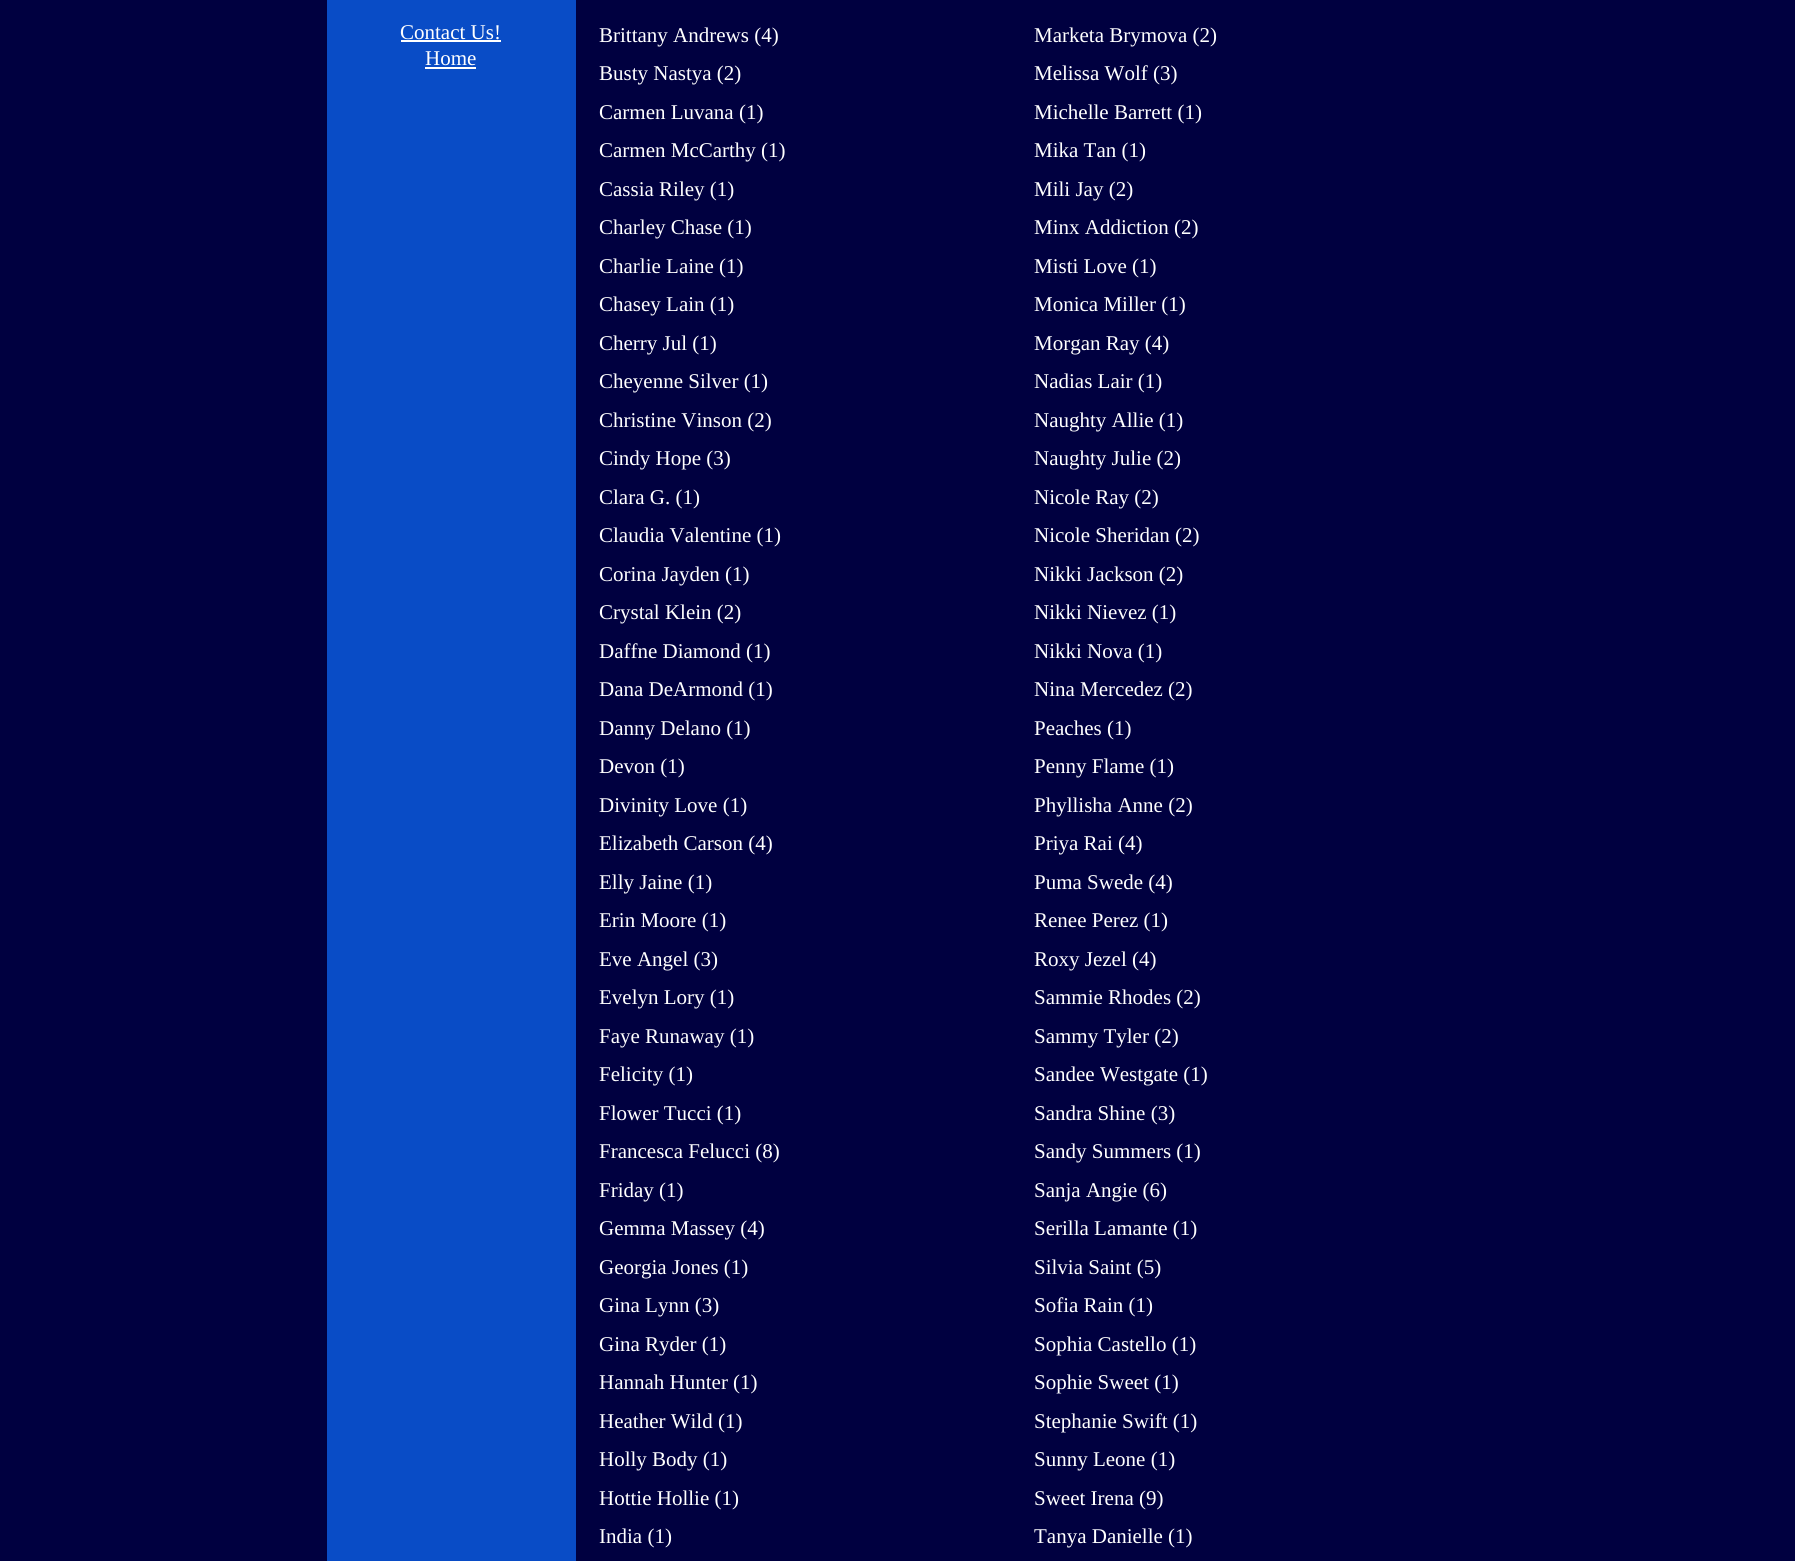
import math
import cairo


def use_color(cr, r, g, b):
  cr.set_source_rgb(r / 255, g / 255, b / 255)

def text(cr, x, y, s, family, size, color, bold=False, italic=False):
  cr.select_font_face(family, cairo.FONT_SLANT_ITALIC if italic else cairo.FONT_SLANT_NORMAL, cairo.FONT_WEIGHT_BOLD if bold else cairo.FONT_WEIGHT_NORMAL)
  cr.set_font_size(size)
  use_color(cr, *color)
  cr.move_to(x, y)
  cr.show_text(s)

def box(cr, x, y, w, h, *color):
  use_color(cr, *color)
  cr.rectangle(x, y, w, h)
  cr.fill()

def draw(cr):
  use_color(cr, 0, 0, 64)
  cr.paint()
  box(cr, 327, 0, 249, 1561, 9, 76, 198)
  box(cr, 401, 40, 100, 2, 255, 255, 255)
  box(cr, 425, 67, 51, 2, 255, 255, 255)
  text(cr, 400, 39, "Contact Us!", "Liberation Serif", 21, (255, 255, 255))
  text(cr, 425, 65, "Home", "Liberation Serif", 21, (255, 255, 255))
  text(cr, 599, 42, "Brittany Andrews (4)", "Liberation Serif", 21, (255, 255, 255))
  text(cr, 1034, 42, "Marketa Brymova (2)", "Liberation Serif", 21, (255, 255, 255))
  text(cr, 599, 80, "Busty Nastya (2)", "Liberation Serif", 21, (255, 255, 255))
  text(cr, 1034, 80, "Melissa Wolf (3)", "Liberation Serif", 21, (255, 255, 255))
  text(cr, 599, 119, "Carmen Luvana (1)", "Liberation Serif", 21, (255, 255, 255))
  text(cr, 1034, 119, "Michelle Barrett (1)", "Liberation Serif", 21, (255, 255, 255))
  text(cr, 599, 157, "Carmen McCarthy (1)", "Liberation Serif", 21, (255, 255, 255))
  text(cr, 1034, 157, "Mika Tan (1)", "Liberation Serif", 21, (255, 255, 255))
  text(cr, 599, 196, "Cassia Riley (1)", "Liberation Serif", 21, (255, 255, 255))
  text(cr, 1034, 196, "Mili Jay (2)", "Liberation Serif", 21, (255, 255, 255))
  text(cr, 599, 234, "Charley Chase (1)", "Liberation Serif", 21, (255, 255, 255))
  text(cr, 1034, 234, "Minx Addiction (2)", "Liberation Serif", 21, (255, 255, 255))
  text(cr, 599, 273, "Charlie Laine (1)", "Liberation Serif", 21, (255, 255, 255))
  text(cr, 1034, 273, "Misti Love (1)", "Liberation Serif", 21, (255, 255, 255))
  text(cr, 599, 311, "Chasey Lain (1)", "Liberation Serif", 21, (255, 255, 255))
  text(cr, 1034, 311, "Monica Miller (1)", "Liberation Serif", 21, (255, 255, 255))
  text(cr, 599, 350, "Cherry Jul (1)", "Liberation Serif", 21, (255, 255, 255))
  text(cr, 1034, 350, "Morgan Ray (4)", "Liberation Serif", 21, (255, 255, 255))
  text(cr, 599, 388, "Cheyenne Silver (1)", "Liberation Serif", 21, (255, 255, 255))
  text(cr, 1034, 388, "Nadias Lair (1)", "Liberation Serif", 21, (255, 255, 255))
  text(cr, 599, 427, "Christine Vinson (2)", "Liberation Serif", 21, (255, 255, 255))
  text(cr, 1034, 427, "Naughty Allie (1)", "Liberation Serif", 21, (255, 255, 255))
  text(cr, 599, 465, "Cindy Hope (3)", "Liberation Serif", 21, (255, 255, 255))
  text(cr, 1034, 465, "Naughty Julie (2)", "Liberation Serif", 21, (255, 255, 255))
  text(cr, 599, 504, "Clara G. (1)", "Liberation Serif", 21, (255, 255, 255))
  text(cr, 1034, 504, "Nicole Ray (2)", "Liberation Serif", 21, (255, 255, 255))
  text(cr, 599, 542, "Claudia Valentine (1)", "Liberation Serif", 21, (255, 255, 255))
  text(cr, 1034, 542, "Nicole Sheridan (2)", "Liberation Serif", 21, (255, 255, 255))
  text(cr, 599, 581, "Corina Jayden (1)", "Liberation Serif", 21, (255, 255, 255))
  text(cr, 1034, 581, "Nikki Jackson (2)", "Liberation Serif", 21, (255, 255, 255))
  text(cr, 599, 619, "Crystal Klein (2)", "Liberation Serif", 21, (255, 255, 255))
  text(cr, 1034, 619, "Nikki Nievez (1)", "Liberation Serif", 21, (255, 255, 255))
  text(cr, 599, 658, "Daffne Diamond (1)", "Liberation Serif", 21, (255, 255, 255))
  text(cr, 1034, 658, "Nikki Nova (1)", "Liberation Serif", 21, (255, 255, 255))
  text(cr, 599, 696, "Dana DeArmond (1)", "Liberation Serif", 21, (255, 255, 255))
  text(cr, 1034, 696, "Nina Mercedez (2)", "Liberation Serif", 21, (255, 255, 255))
  text(cr, 599, 735, "Danny Delano (1)", "Liberation Serif", 21, (255, 255, 255))
  text(cr, 1034, 735, "Peaches (1)", "Liberation Serif", 21, (255, 255, 255))
  text(cr, 599, 773, "Devon (1)", "Liberation Serif", 21, (255, 255, 255))
  text(cr, 1034, 773, "Penny Flame (1)", "Liberation Serif", 21, (255, 255, 255))
  text(cr, 599, 812, "Divinity Love (1)", "Liberation Serif", 21, (255, 255, 255))
  text(cr, 1034, 812, "Phyllisha Anne (2)", "Liberation Serif", 21, (255, 255, 255))
  text(cr, 599, 850, "Elizabeth Carson (4)", "Liberation Serif", 21, (255, 255, 255))
  text(cr, 1034, 850, "Priya Rai (4)", "Liberation Serif", 21, (255, 255, 255))
  text(cr, 599, 889, "Elly Jaine (1)", "Liberation Serif", 21, (255, 255, 255))
  text(cr, 1034, 889, "Puma Swede (4)", "Liberation Serif", 21, (255, 255, 255))
  text(cr, 599, 927, "Erin Moore (1)", "Liberation Serif", 21, (255, 255, 255))
  text(cr, 1034, 927, "Renee Perez (1)", "Liberation Serif", 21, (255, 255, 255))
  text(cr, 599, 966, "Eve Angel (3)", "Liberation Serif", 21, (255, 255, 255))
  text(cr, 1034, 966, "Roxy Jezel (4)", "Liberation Serif", 21, (255, 255, 255))
  text(cr, 599, 1004, "Evelyn Lory (1)", "Liberation Serif", 21, (255, 255, 255))
  text(cr, 1034, 1004, "Sammie Rhodes (2)", "Liberation Serif", 21, (255, 255, 255))
  text(cr, 599, 1043, "Faye Runaway (1)", "Liberation Serif", 21, (255, 255, 255))
  text(cr, 1034, 1043, "Sammy Tyler (2)", "Liberation Serif", 21, (255, 255, 255))
  text(cr, 599, 1081, "Felicity (1)", "Liberation Serif", 21, (255, 255, 255))
  text(cr, 1034, 1081, "Sandee Westgate (1)", "Liberation Serif", 21, (255, 255, 255))
  text(cr, 599, 1120, "Flower Tucci (1)", "Liberation Serif", 21, (255, 255, 255))
  text(cr, 1034, 1120, "Sandra Shine (3)", "Liberation Serif", 21, (255, 255, 255))
  text(cr, 599, 1158, "Francesca Felucci (8)", "Liberation Serif", 21, (255, 255, 255))
  text(cr, 1034, 1158, "Sandy Summers (1)", "Liberation Serif", 21, (255, 255, 255))
  text(cr, 599, 1197, "Friday (1)", "Liberation Serif", 21, (255, 255, 255))
  text(cr, 1034, 1197, "Sanja Angie (6)", "Liberation Serif", 21, (255, 255, 255))
  text(cr, 599, 1235, "Gemma Massey (4)", "Liberation Serif", 21, (255, 255, 255))
  text(cr, 1034, 1235, "Serilla Lamante (1)", "Liberation Serif", 21, (255, 255, 255))
  text(cr, 599, 1274, "Georgia Jones (1)", "Liberation Serif", 21, (255, 255, 255))
  text(cr, 1034, 1274, "Silvia Saint (5)", "Liberation Serif", 21, (255, 255, 255))
  text(cr, 599, 1312, "Gina Lynn (3)", "Liberation Serif", 21, (255, 255, 255))
  text(cr, 1034, 1312, "Sofia Rain (1)", "Liberation Serif", 21, (255, 255, 255))
  text(cr, 599, 1351, "Gina Ryder (1)", "Liberation Serif", 21, (255, 255, 255))
  text(cr, 1034, 1351, "Sophia Castello (1)", "Liberation Serif", 21, (255, 255, 255))
  text(cr, 599, 1389, "Hannah Hunter (1)", "Liberation Serif", 21, (255, 255, 255))
  text(cr, 1034, 1389, "Sophie Sweet (1)", "Liberation Serif", 21, (255, 255, 255))
  text(cr, 599, 1428, "Heather Wild (1)", "Liberation Serif", 21, (255, 255, 255))
  text(cr, 1034, 1428, "Stephanie Swift (1)", "Liberation Serif", 21, (255, 255, 255))
  text(cr, 599, 1466, "Holly Body (1)", "Liberation Serif", 21, (255, 255, 255))
  text(cr, 1034, 1466, "Sunny Leone (1)", "Liberation Serif", 21, (255, 255, 255))
  text(cr, 599, 1505, "Hottie Hollie (1)", "Liberation Serif", 21, (255, 255, 255))
  text(cr, 1034, 1505, "Sweet Irena (9)", "Liberation Serif", 21, (255, 255, 255))
  text(cr, 599, 1543, "India (1)", "Liberation Serif", 21, (255, 255, 255))
  text(cr, 1034, 1543, "Tanya Danielle (1)", "Liberation Serif", 21, (255, 255, 255))


surface = cairo.ImageSurface(cairo.FORMAT_RGB24, 1795, 1561)
cr = cairo.Context(surface)
options = cairo.FontOptions()
options.set_hint_metrics(cairo.HINT_METRICS_OFF)
options.set_hint_style(cairo.HINT_STYLE_NONE)
cr.set_font_options(options)
cr.set_miter_limit(4)
draw(cr)
surface.write_to_png("out.png")
